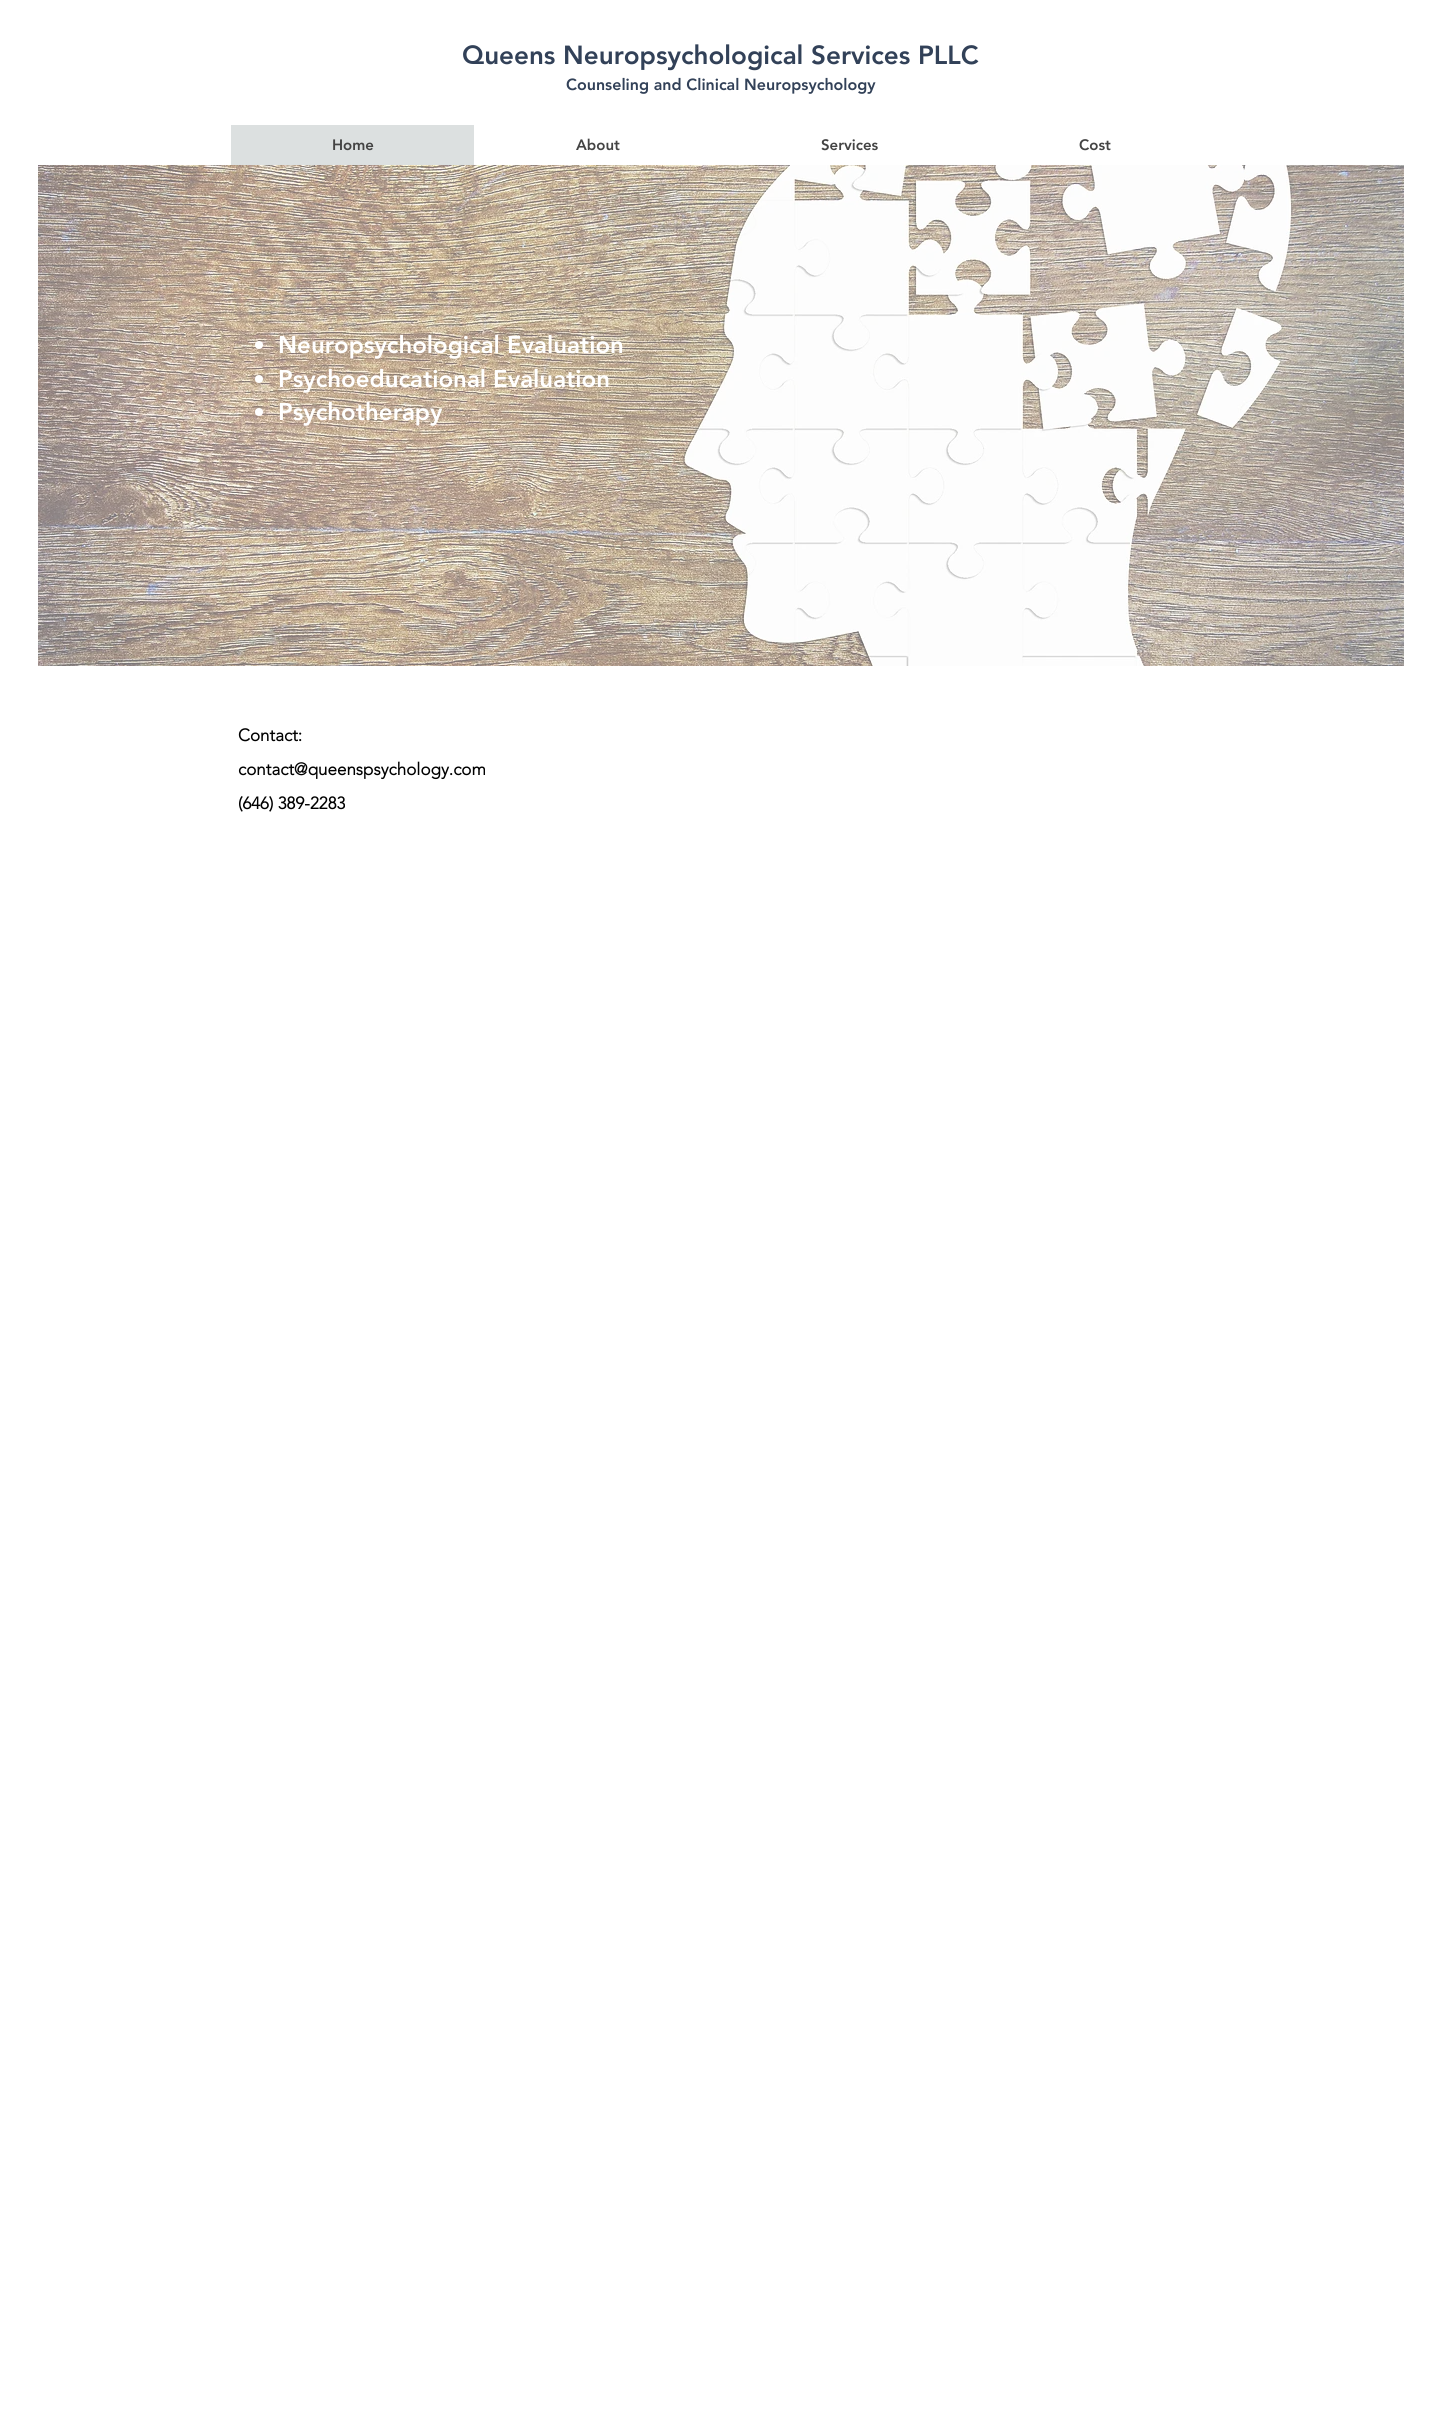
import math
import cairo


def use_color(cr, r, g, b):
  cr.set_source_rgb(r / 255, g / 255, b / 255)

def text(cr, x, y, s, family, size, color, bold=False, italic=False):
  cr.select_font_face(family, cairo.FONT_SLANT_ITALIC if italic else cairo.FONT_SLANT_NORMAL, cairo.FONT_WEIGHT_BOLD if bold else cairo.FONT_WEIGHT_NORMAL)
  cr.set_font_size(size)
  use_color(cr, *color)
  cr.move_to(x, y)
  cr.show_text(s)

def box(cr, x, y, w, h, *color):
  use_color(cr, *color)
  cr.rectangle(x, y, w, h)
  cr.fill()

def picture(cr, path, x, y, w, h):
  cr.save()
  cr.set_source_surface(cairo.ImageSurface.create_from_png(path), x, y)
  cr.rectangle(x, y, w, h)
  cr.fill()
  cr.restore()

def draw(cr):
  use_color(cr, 255, 255, 255)
  cr.paint()
  box(cr, 231, 125, 243, 40, 220, 224, 224)
  picture(cr, "img_01.png", 38, 165, 1366, 501)
  use_color(cr, 255, 255, 255)
  cr.arc(259, 345, 4, 0, 2 * math.pi)
  cr.fill()
  cr.arc(259, 379, 4, 0, 2 * math.pi)
  cr.fill()
  cr.arc(259, 412, 4, 0, 2 * math.pi)
  cr.fill()
  text(cr, 462, 64, "Queens Neuropsychological Services PLLC", "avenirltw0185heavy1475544 Black", 26, (50, 65, 88))
  text(cr, 566, 90, "Counseling and Clinical Neuropsychology", "avenirltw0185heavy1475544 Black", 16, (50, 65, 88))
  text(cr, 332, 150, "Home", "avenirltw0185heavy1475544 Black", 15, (68, 68, 68))
  text(cr, 576, 150, "About", "avenirltw0185heavy1475544 Black", 15, (68, 68, 68))
  text(cr, 821, 150, "Services", "avenirltw0185heavy1475544 Black", 15, (68, 68, 68))
  text(cr, 1079, 150, "Cost", "avenirltw0185heavy1475544 Black", 15, (68, 68, 68))
  text(cr, 278, 353, "Neuropsychological Evaluation", "avenirltw0185heavy1475544 Black", 24, (255, 255, 255))
  text(cr, 278, 387, "Psychoeducational Evaluation", "avenirltw0185heavy1475544 Black", 24, (255, 255, 255))
  text(cr, 278, 420, "Psychotherapy", "avenirltw0185heavy1475544 Black", 24, (255, 255, 255))
  text(cr, 238, 741, "Contact:", "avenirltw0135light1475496", 17, (0, 0, 0), bold=True)
  text(cr, 238, 775, "contact@queenspsychology.com", "avenirltw0135light1475496", 17, (0, 0, 0), bold=True)
  text(cr, 238, 809, "(646) 389-2283", "avenirltw0135light1475496", 17, (0, 0, 0), bold=True)


surface = cairo.ImageSurface(cairo.FORMAT_RGB24, 1442, 2436)
cr = cairo.Context(surface)
options = cairo.FontOptions()
options.set_hint_metrics(cairo.HINT_METRICS_OFF)
options.set_hint_style(cairo.HINT_STYLE_NONE)
cr.set_font_options(options)
cr.set_miter_limit(4)
draw(cr)
surface.write_to_png("out.png")
